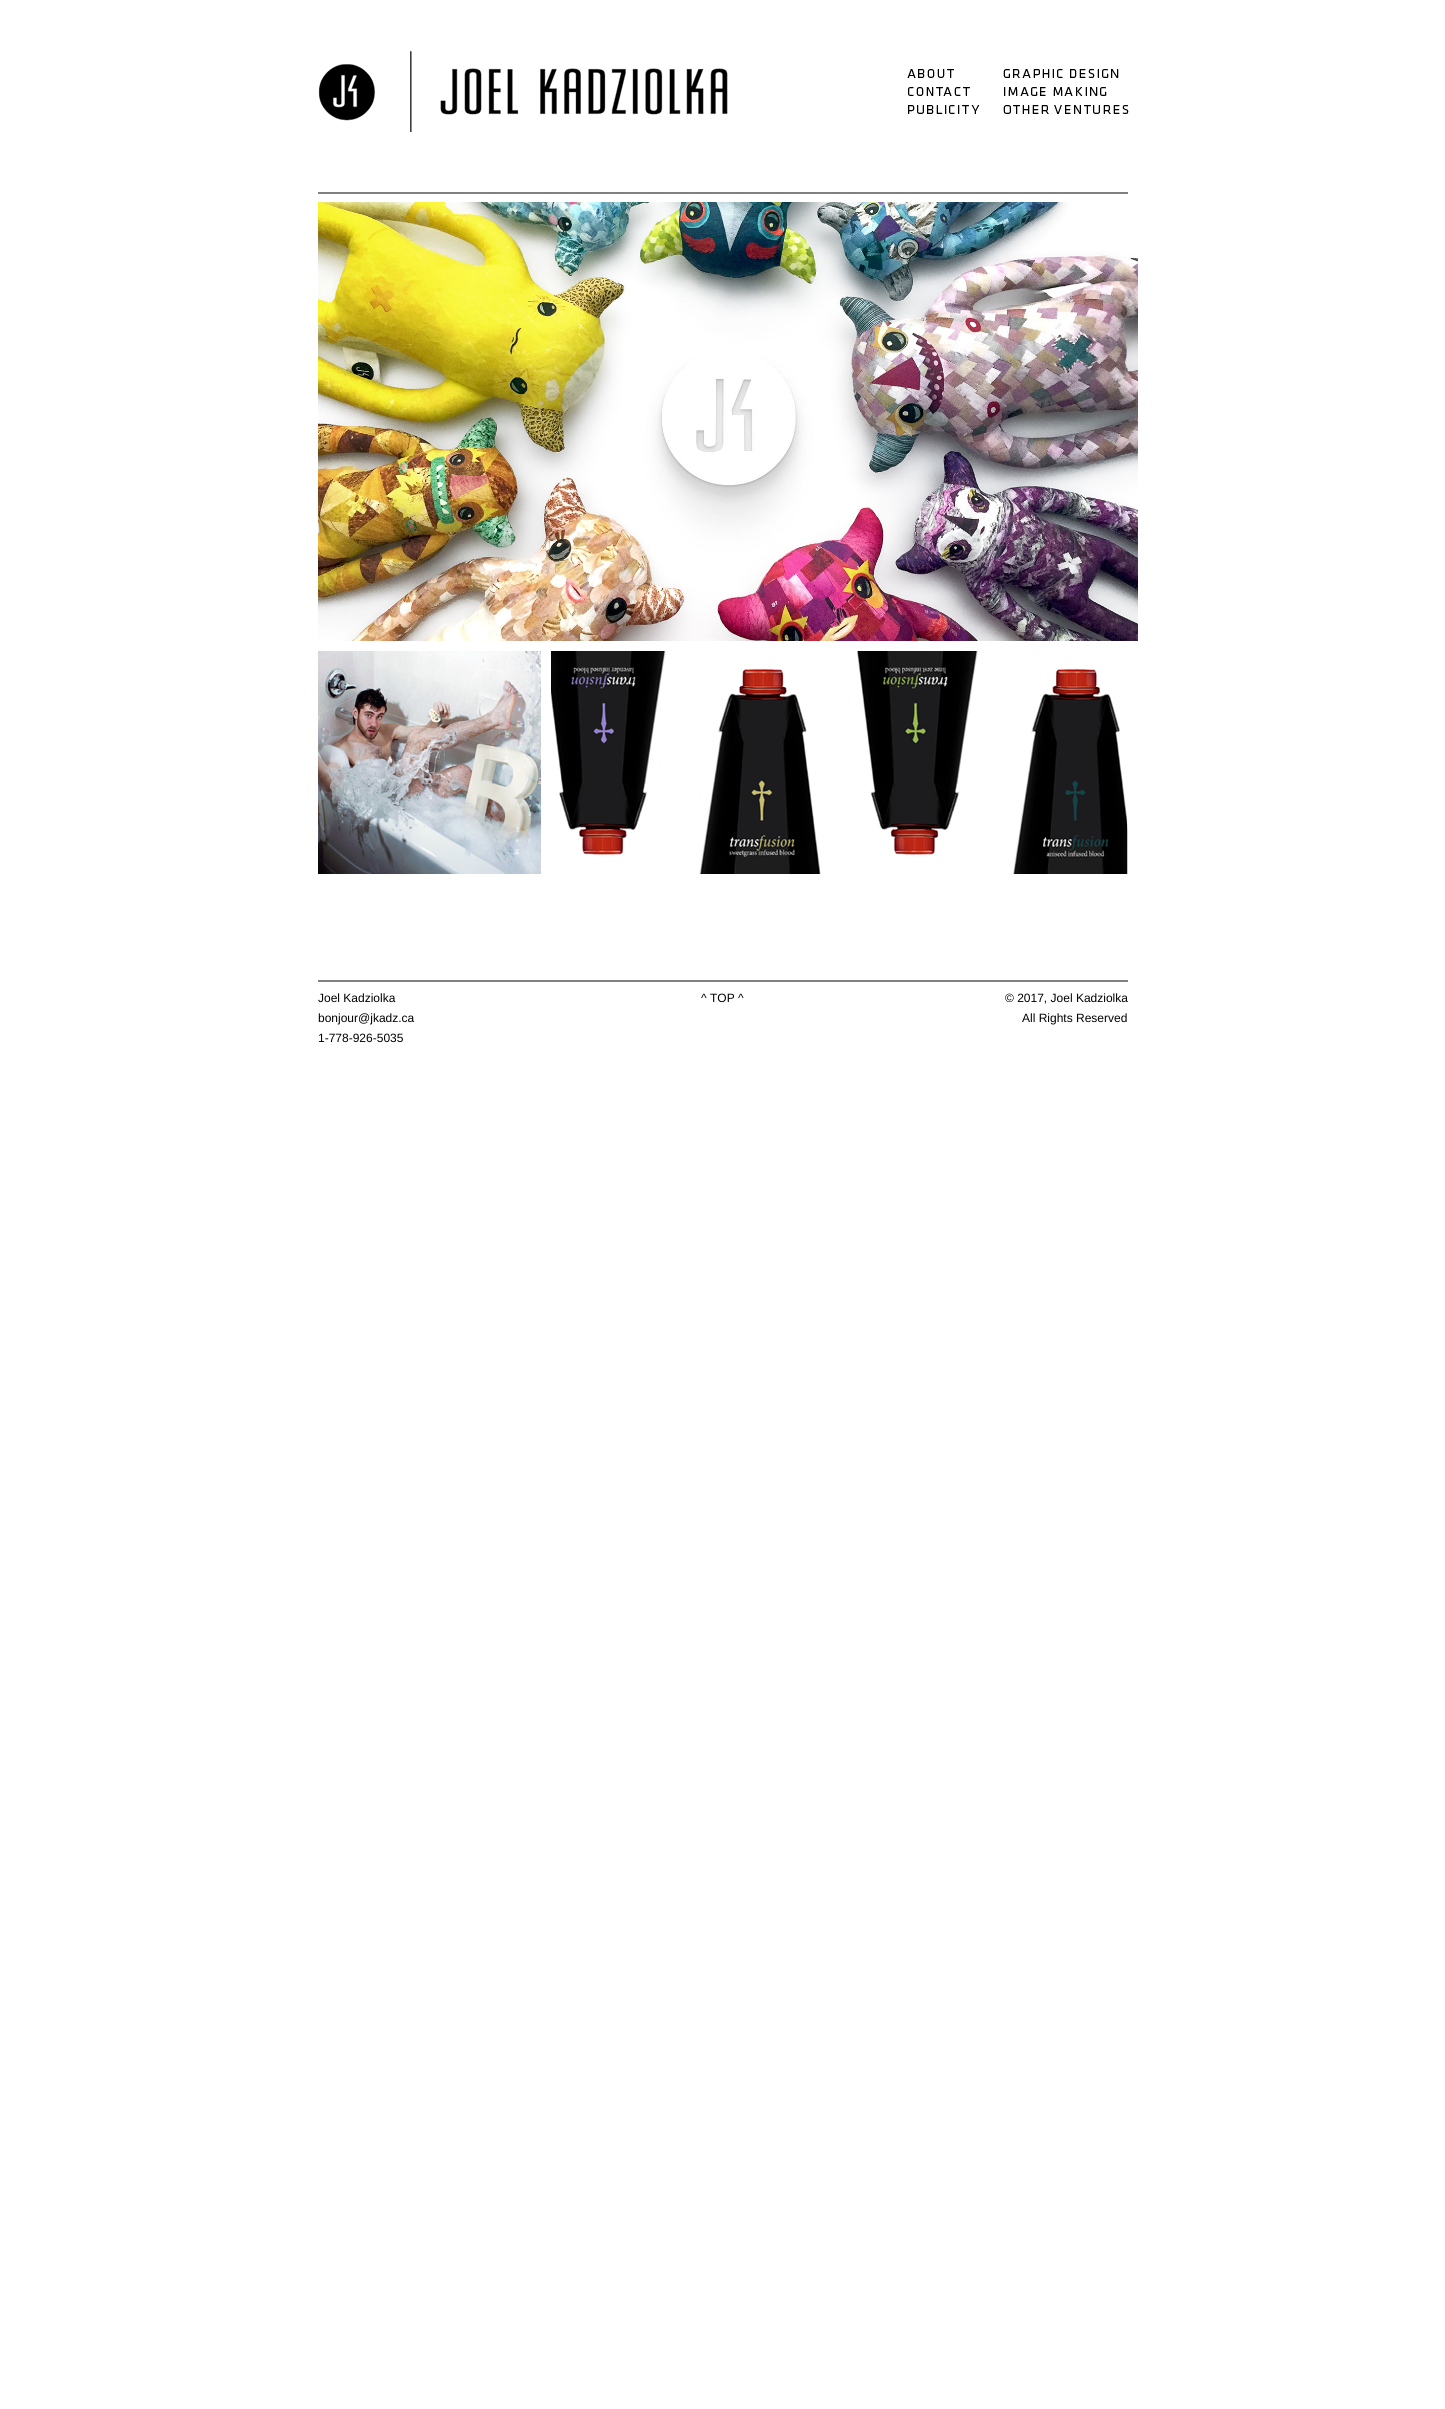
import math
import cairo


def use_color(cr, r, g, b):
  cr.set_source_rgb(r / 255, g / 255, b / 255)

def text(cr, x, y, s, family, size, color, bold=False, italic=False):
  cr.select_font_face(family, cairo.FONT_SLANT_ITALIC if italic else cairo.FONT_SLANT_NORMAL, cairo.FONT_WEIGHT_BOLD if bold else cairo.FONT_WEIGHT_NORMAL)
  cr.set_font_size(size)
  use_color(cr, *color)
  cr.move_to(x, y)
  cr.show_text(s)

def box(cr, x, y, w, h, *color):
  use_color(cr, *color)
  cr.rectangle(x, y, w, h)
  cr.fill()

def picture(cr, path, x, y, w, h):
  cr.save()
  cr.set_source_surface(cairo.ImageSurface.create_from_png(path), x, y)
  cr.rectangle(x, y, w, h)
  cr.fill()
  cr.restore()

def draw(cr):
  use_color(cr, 255, 255, 255)
  cr.paint()
  picture(cr, "img_01.png", 318, 51, 410, 81)
  picture(cr, "img_02.png", 907, 69, 47, 9)
  picture(cr, "img_03.png", 1003, 69, 116, 9)
  picture(cr, "img_04.png", 908, 87, 62, 9)
  picture(cr, "img_05.png", 1004, 87, 103, 9)
  picture(cr, "img_06.png", 908, 105, 72, 9)
  picture(cr, "img_07.png", 1003, 105, 126, 9)
  box(cr, 318, 192, 810, 2, 128, 128, 128)
  picture(cr, "img_08.png", 318, 202, 820, 439)
  picture(cr, "img_09.png", 318, 651, 223, 223)
  picture(cr, "img_10.png", 551, 651, 577, 223)
  box(cr, 318, 980, 810, 2, 128, 128, 128)
  text(cr, 318, 1002, "Joel Kadziolka", "Liberation Sans", 12, (0, 0, 0))
  text(cr, 318, 1022, "bonjour@jkadz.ca", "Liberation Sans", 12, (0, 0, 0))
  text(cr, 318, 1042, "1-778-926-5035", "Liberation Sans", 12, (0, 0, 0))
  text(cr, 701, 1002, "^ TOP ^", "Liberation Sans", 12, (0, 0, 0))
  text(cr, 1005, 1002, "© 2017, Joel Kadziolka", "Liberation Sans", 12, (0, 0, 0))
  text(cr, 1022, 1022, "All Rights Reserved", "Liberation Sans", 12, (0, 0, 0))


surface = cairo.ImageSurface(cairo.FORMAT_RGB24, 1445, 2409)
cr = cairo.Context(surface)
options = cairo.FontOptions()
options.set_hint_metrics(cairo.HINT_METRICS_OFF)
options.set_hint_style(cairo.HINT_STYLE_NONE)
cr.set_font_options(options)
cr.set_miter_limit(4)
draw(cr)
surface.write_to_png("out.png")
